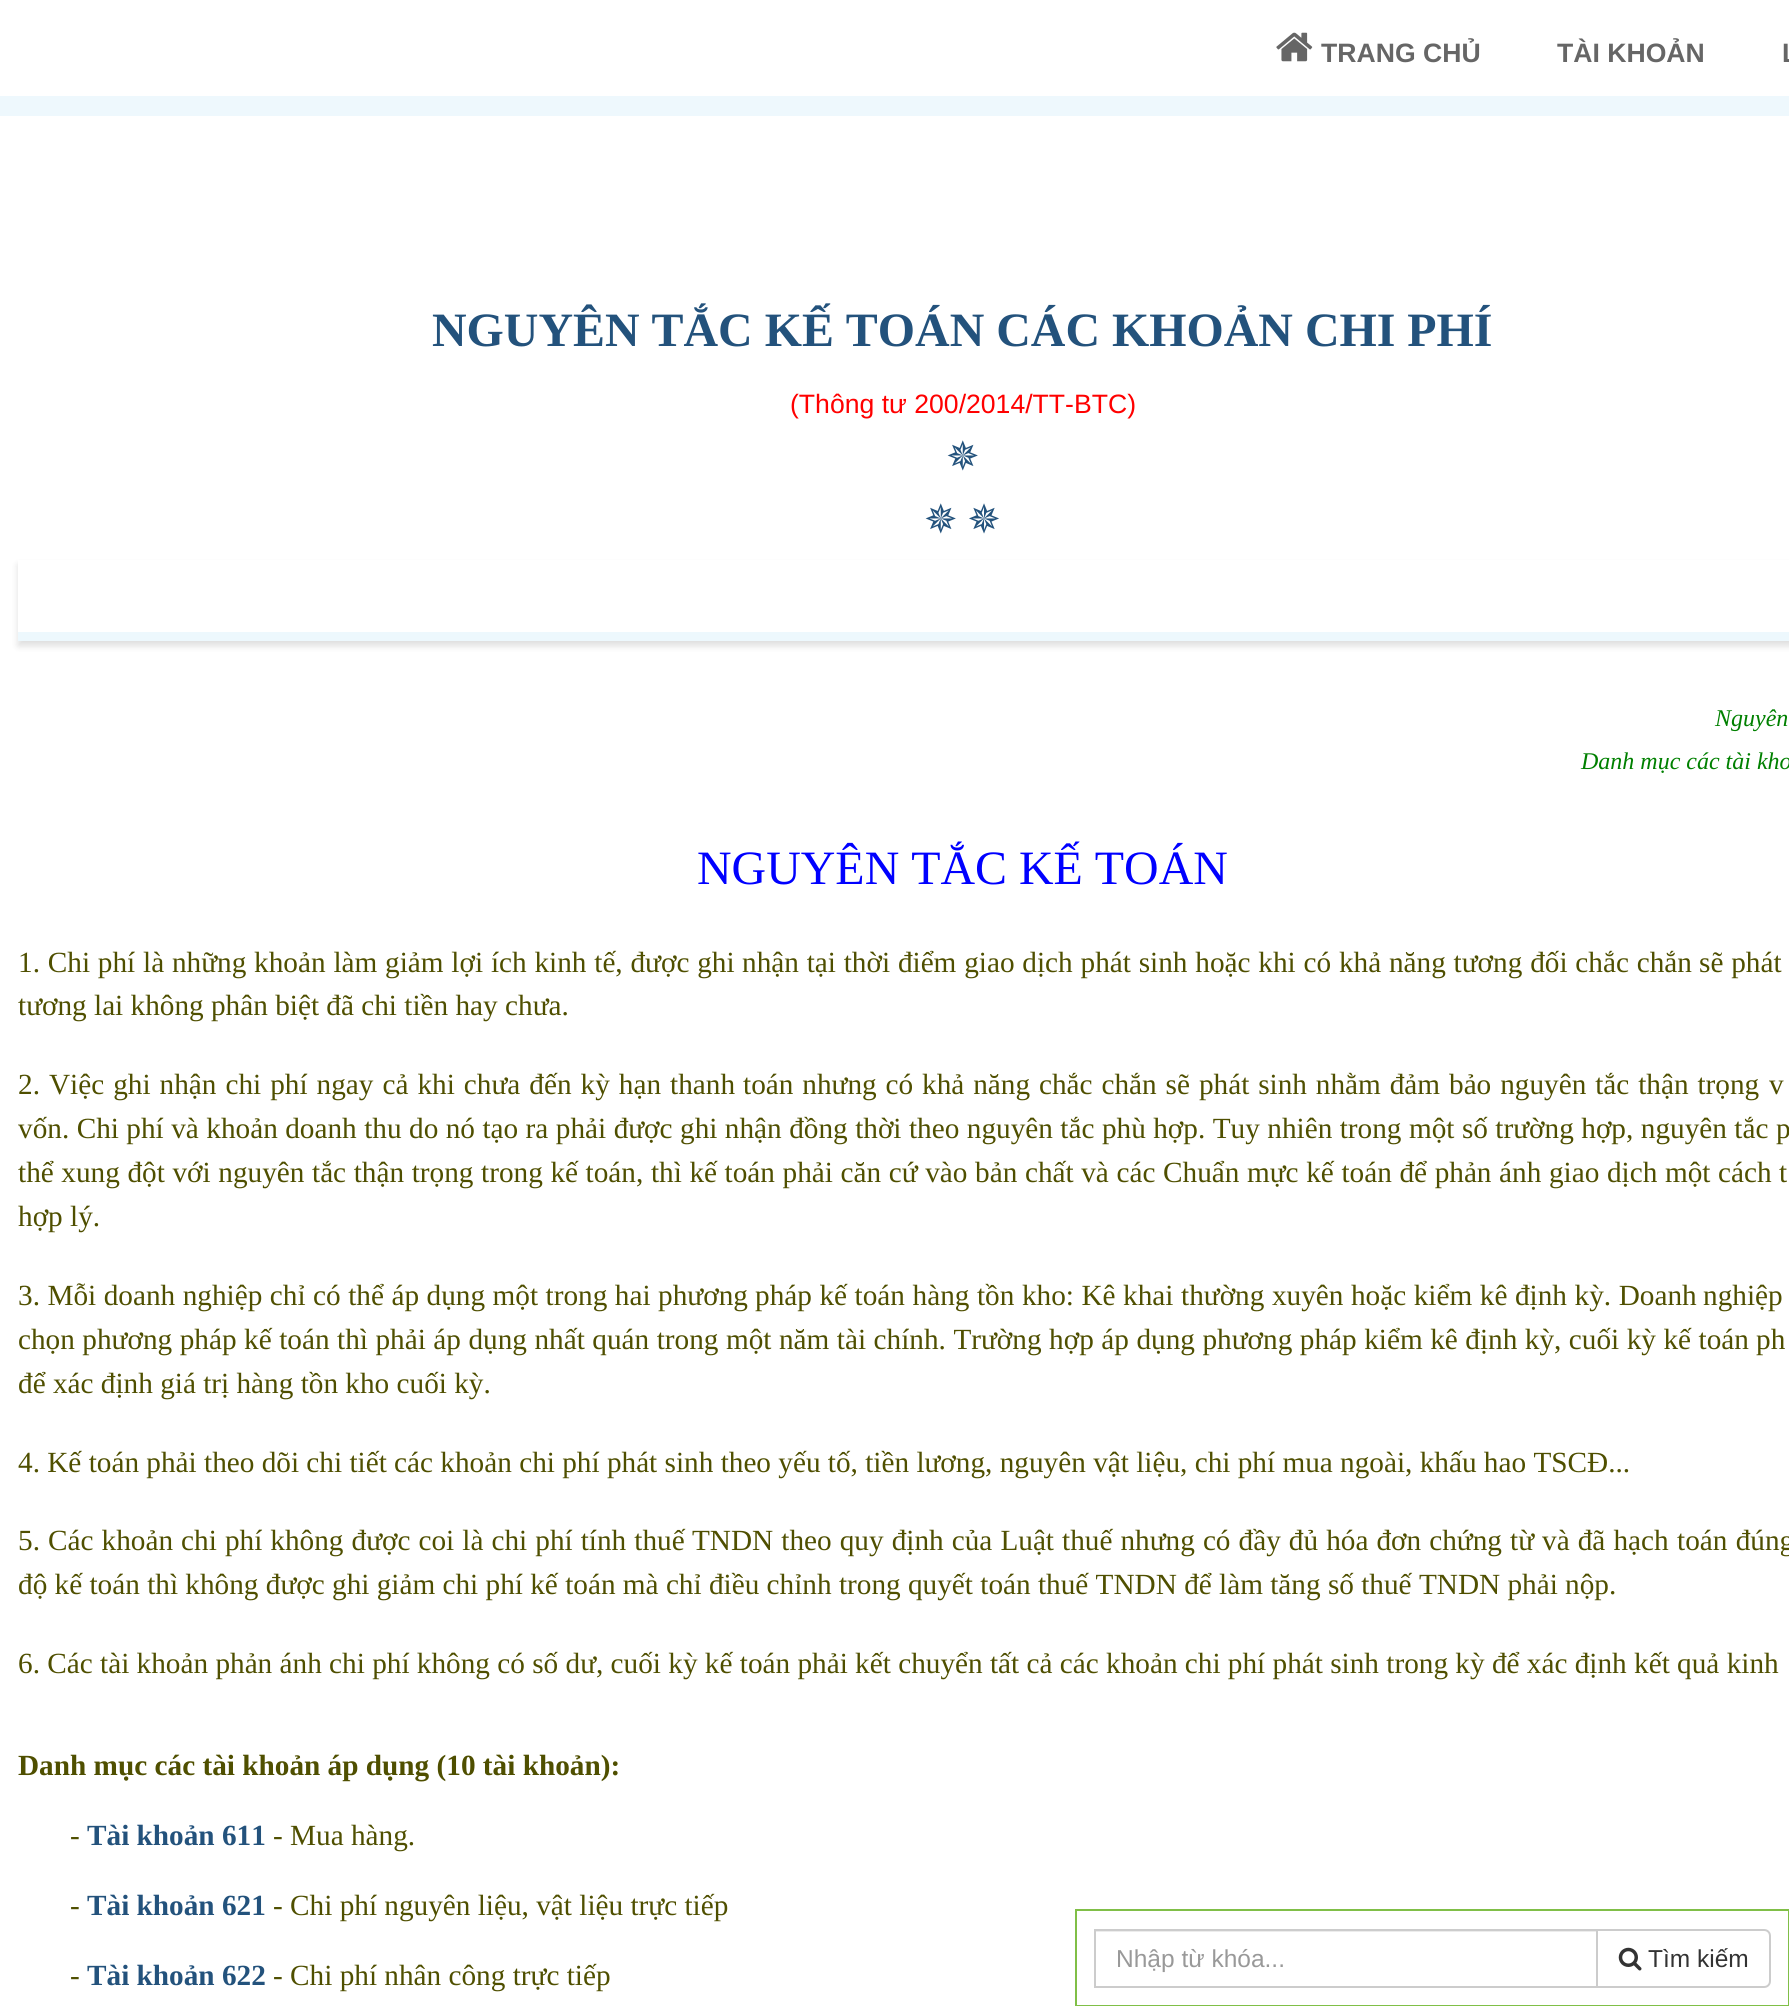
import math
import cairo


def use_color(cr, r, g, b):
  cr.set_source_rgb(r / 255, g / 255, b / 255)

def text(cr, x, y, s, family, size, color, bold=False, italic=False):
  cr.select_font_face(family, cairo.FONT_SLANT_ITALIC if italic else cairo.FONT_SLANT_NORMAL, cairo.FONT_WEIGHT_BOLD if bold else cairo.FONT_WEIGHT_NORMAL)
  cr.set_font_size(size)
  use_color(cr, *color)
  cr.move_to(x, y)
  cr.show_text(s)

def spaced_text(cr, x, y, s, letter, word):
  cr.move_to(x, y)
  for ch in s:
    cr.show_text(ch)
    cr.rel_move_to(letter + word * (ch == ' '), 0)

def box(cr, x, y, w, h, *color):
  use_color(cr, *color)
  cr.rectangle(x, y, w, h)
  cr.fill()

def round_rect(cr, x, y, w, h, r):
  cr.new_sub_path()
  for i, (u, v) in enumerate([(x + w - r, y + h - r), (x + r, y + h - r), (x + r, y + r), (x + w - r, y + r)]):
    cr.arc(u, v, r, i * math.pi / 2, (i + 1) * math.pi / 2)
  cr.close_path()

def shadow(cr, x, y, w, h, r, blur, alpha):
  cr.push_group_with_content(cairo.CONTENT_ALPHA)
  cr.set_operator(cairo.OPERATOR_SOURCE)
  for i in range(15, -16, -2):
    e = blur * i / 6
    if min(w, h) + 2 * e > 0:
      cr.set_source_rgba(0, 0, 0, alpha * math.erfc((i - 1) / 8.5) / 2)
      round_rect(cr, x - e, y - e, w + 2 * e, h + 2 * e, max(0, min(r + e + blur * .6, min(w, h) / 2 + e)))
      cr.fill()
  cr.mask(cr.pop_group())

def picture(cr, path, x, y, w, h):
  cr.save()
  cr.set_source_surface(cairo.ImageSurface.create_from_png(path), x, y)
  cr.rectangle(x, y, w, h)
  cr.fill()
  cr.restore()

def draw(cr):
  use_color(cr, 238, 248, 253)
  cr.paint()
  box(cr, 0, 0, 1789, 96, 255, 255, 255)
  picture(cr, "img_01.png", 1276, 32, 37, 30)
  box(cr, 0, 116, 1789, 1890, 255, 255, 255)
  cr.save()
  cr.set_fill_rule(cairo.FILL_RULE_EVEN_ODD)
  cr.new_path()
  cr.move_to(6, 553)
  cr.line_to(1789, 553)
  cr.line_to(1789, 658)
  cr.line_to(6, 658)
  cr.close_path()
  cr.move_to(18, 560)
  cr.line_to(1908, 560)
  cr.line_to(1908, 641)
  cr.line_to(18, 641)
  cr.close_path()
  cr.clip()
  use_color(cr, 0, 0, 0)
  shadow(cr, 18, 565, 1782, 81, 0, 3.5, 0.13)
  cr.restore()
  box(cr, 18, 632, 1771, 9, 237, 248, 253)
  cr.rectangle(1076, 1910, 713, 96)
  use_color(cr, 128, 191, 71)
  cr.stroke()
  box(cr, 1096, 1931, 500, 1, 236, 236, 236)
  cr.rectangle(1095, 1930, 502, 57)
  use_color(cr, 204, 204, 204)
  cr.stroke()
  use_color(cr, 255, 255, 255)
  cr.new_path()
  cr.move_to(1597, 1930)
  cr.line_to(1764, 1930)
  cr.curve_to(1767.5, 1930, 1770, 1932.5, 1770, 1936)
  cr.line_to(1770, 1981)
  cr.curve_to(1770, 1984.5, 1767.5, 1987, 1764, 1987)
  cr.line_to(1597, 1987)
  cr.close_path()
  cr.fill_preserve()
  use_color(cr, 204, 204, 204)
  cr.stroke()
  picture(cr, "img_02.png", 1618, 1947, 24, 24)
  text(cr, 1321, 62, "TRANG CHỦ", "Liberation Sans", 26.6, (102, 102, 102), bold=True)
  text(cr, 1557, 62, "TÀI KHOẢN", "Liberation Sans", 26.6, (102, 102, 102), bold=True)
  text(cr, 1782, 62, "L", "Liberation Sans", 26.6, (102, 102, 102), bold=True)
  text(cr, 432, 346, "NGUYÊN TẮC KẾ TOÁN CÁC KHOẢN CHI PHÍ", "Liberation Serif", 47.9, (35, 82, 124), bold=True)
  text(cr, 790, 413, "(Thông tư 200/2014/TT-BTC)", "Liberation Sans", 26.6, (255, 0, 0))
  text(cr, 946, 470, "✵", "DejaVu Sans", 40, (35, 82, 124))
  spaced_text(cr, 924, 533, "✵ ✵", 0, -3)
  text(cr, 1715, 726, "Nguyên", "Liberation Serif", 24, (0, 128, 0), italic=True)
  text(cr, 1581, 769, "Danh mục các tài kho", "Liberation Serif", 24, (0, 128, 0), italic=True)
  text(cr, 697, 884, "NGUYÊN TẮC KẾ TOÁN", "Liberation Serif", 47.9, (0, 0, 255))
  cr.set_font_size(29.25)
  use_color(cr, 79, 79, 0)
  spaced_text(cr, 18, 972, "1. Chi phí là những khoản làm giảm lợi ích kinh tế, được ghi", 0, 0.5)
  spaced_text(cr, 742, 972, "nhận tại thời điểm giao dịch phát sinh hoặc khi có khả năng tương đối chắc chắn", 0, 0.5)
  spaced_text(cr, 1699, 972, "sẽ phát", 0, 0.5)
  text(cr, 18, 1015, "tương lai không phân biệt đã chi tiền hay chưa.", "Liberation Serif", 29.25, (79, 79, 0))
  spaced_text(cr, 18, 1094, "2. Việc ghi nhận chi phí ngay cả khi chưa đến kỳ hạn thanh", 0, 1.7)
  spaced_text(cr, 743, 1094, "toán nhưng có khả năng chắc chắn sẽ phát sinh nhằm đảm bảo nguyên tắc thận trọng", 0, 1.6)
  spaced_text(cr, 1769, 1094, "v", 0, 1.6)
  spaced_text(cr, 18, 1138, "vốn. Chi phí và khoản doanh thu do nó tạo ra phải được ghi nhận đồng thời theo nguyên tắc phù hợp. Tuy nhiên trong một số trường hợp, nguyên tắc p", 0, 0.15)
  spaced_text(cr, 18, 1182, "thể xung đột với nguyên tắc thận trọng trong kế toán, thì kế toán phải căn cứ vào bản chất và các Chuẩn mực kế toán để phản ánh giao dịch một cách", 0, 0.3)
  text(cr, 1779, 1182, "t", "Liberation Serif", 29.25, (79, 79, 0))
  text(cr, 18, 1226, "hợp lý.", "Liberation Serif", 29.25, (79, 79, 0))
  spaced_text(cr, 18, 1305, "3. Mỗi doanh nghiệp chỉ có thể áp dụng một trong hai phương", 0, 0.2)
  spaced_text(cr, 755, 1305, "pháp kế toán hàng tồn kho: Kê khai thường xuyên hoặc kiểm kê định kỳ. Doanh", 0, 0.25)
  spaced_text(cr, 1703, 1305, "nghiệp", 0, 0.2)
  spaced_text(cr, 18, 1349, "chọn phương pháp kế toán thì phải áp dụng nhất quán trong một năm tài chính. Trường hợp áp dụng phương pháp kiểm kê định kỳ, cuối kỳ kế toán", 0, 0.2)
  text(cr, 1756, 1349, "ph", "Liberation Serif", 29.25, (79, 79, 0))
  text(cr, 18, 1393, "để xác định giá trị hàng tồn kho cuối kỳ.", "Liberation Serif", 29.25, (79, 79, 0))
  text(cr, 18, 1472, "4. Kế toán phải theo dõi chi tiết các khoản chi phí phát sinh theo yếu tố, tiền lương, nguyên vật liệu, chi phí mua ngoài, khấu hao TSCĐ...", "Liberation Serif", 29.25, (79, 79, 0))
  spaced_text(cr, 18, 1550, "5. Các khoản chi phí không được coi là chi phí tính thuế", 0, 0.75)
  spaced_text(cr, 692, 1550, "TNDN theo quy định của Luật thuế nhưng có đầy đủ hóa đơn chứng từ và đã hạch", 0, 0.75)
  spaced_text(cr, 1677, 1550, "toán đúng", 0, 1)
  text(cr, 18, 1594, "độ kế toán thì không được ghi giảm chi phí kế toán mà chỉ điều chỉnh trong quyết toán thuế TNDN để làm tăng số thuế TNDN phải nộp.", "Liberation Serif", 29.25, (79, 79, 0))
  text(cr, 18, 1673, "6. Các tài khoản phản ánh chi phí không có số dư, cuối kỳ kế toán phải kết chuyển tất cả các khoản chi phí phát sinh trong kỳ để xác định kết quả kinh", "Liberation Serif", 29.25, (79, 79, 0))
  text(cr, 18, 1775, "Danh mục các tài khoản áp dụng (10 tài khoản):", "Liberation Serif", 29.25, (79, 79, 0), bold=True)
  text(cr, 70, 1845, "-", "Liberation Serif", 29.25, (79, 79, 0))
  text(cr, 87, 1845, "Tài khoản 611", "Liberation Serif", 29.25, (35, 82, 124), bold=True)
  text(cr, 273, 1845, "- Mua hàng.", "Liberation Serif", 29.25, (79, 79, 0))
  text(cr, 70, 1915, "-", "Liberation Serif", 29.25, (79, 79, 0))
  text(cr, 87, 1915, "Tài khoản 621", "Liberation Serif", 29.25, (35, 82, 124), bold=True)
  text(cr, 273, 1915, "- Chi phí nguyên liệu, vật liệu trực tiếp", "Liberation Serif", 29.25, (79, 79, 0))
  text(cr, 70, 1985, "-", "Liberation Serif", 29.25, (79, 79, 0))
  text(cr, 87, 1985, "Tài khoản 622", "Liberation Serif", 29.25, (35, 82, 124), bold=True)
  text(cr, 273, 1985, "- Chi phí nhân công trực tiếp", "Liberation Serif", 29.25, (79, 79, 0))
  text(cr, 1116, 1967, "Nhập từ khóa...", "Liberation Sans", 24.5, (153, 153, 153))
  text(cr, 1648, 1967, "Tìm kiếm", "Liberation Sans", 24.5, (51, 51, 51))


surface = cairo.ImageSurface(cairo.FORMAT_RGB24, 1789, 2006)
cr = cairo.Context(surface)
options = cairo.FontOptions()
options.set_hint_metrics(cairo.HINT_METRICS_OFF)
options.set_hint_style(cairo.HINT_STYLE_NONE)
cr.set_font_options(options)
cr.set_miter_limit(4)
draw(cr)
surface.write_to_png("out.png")
